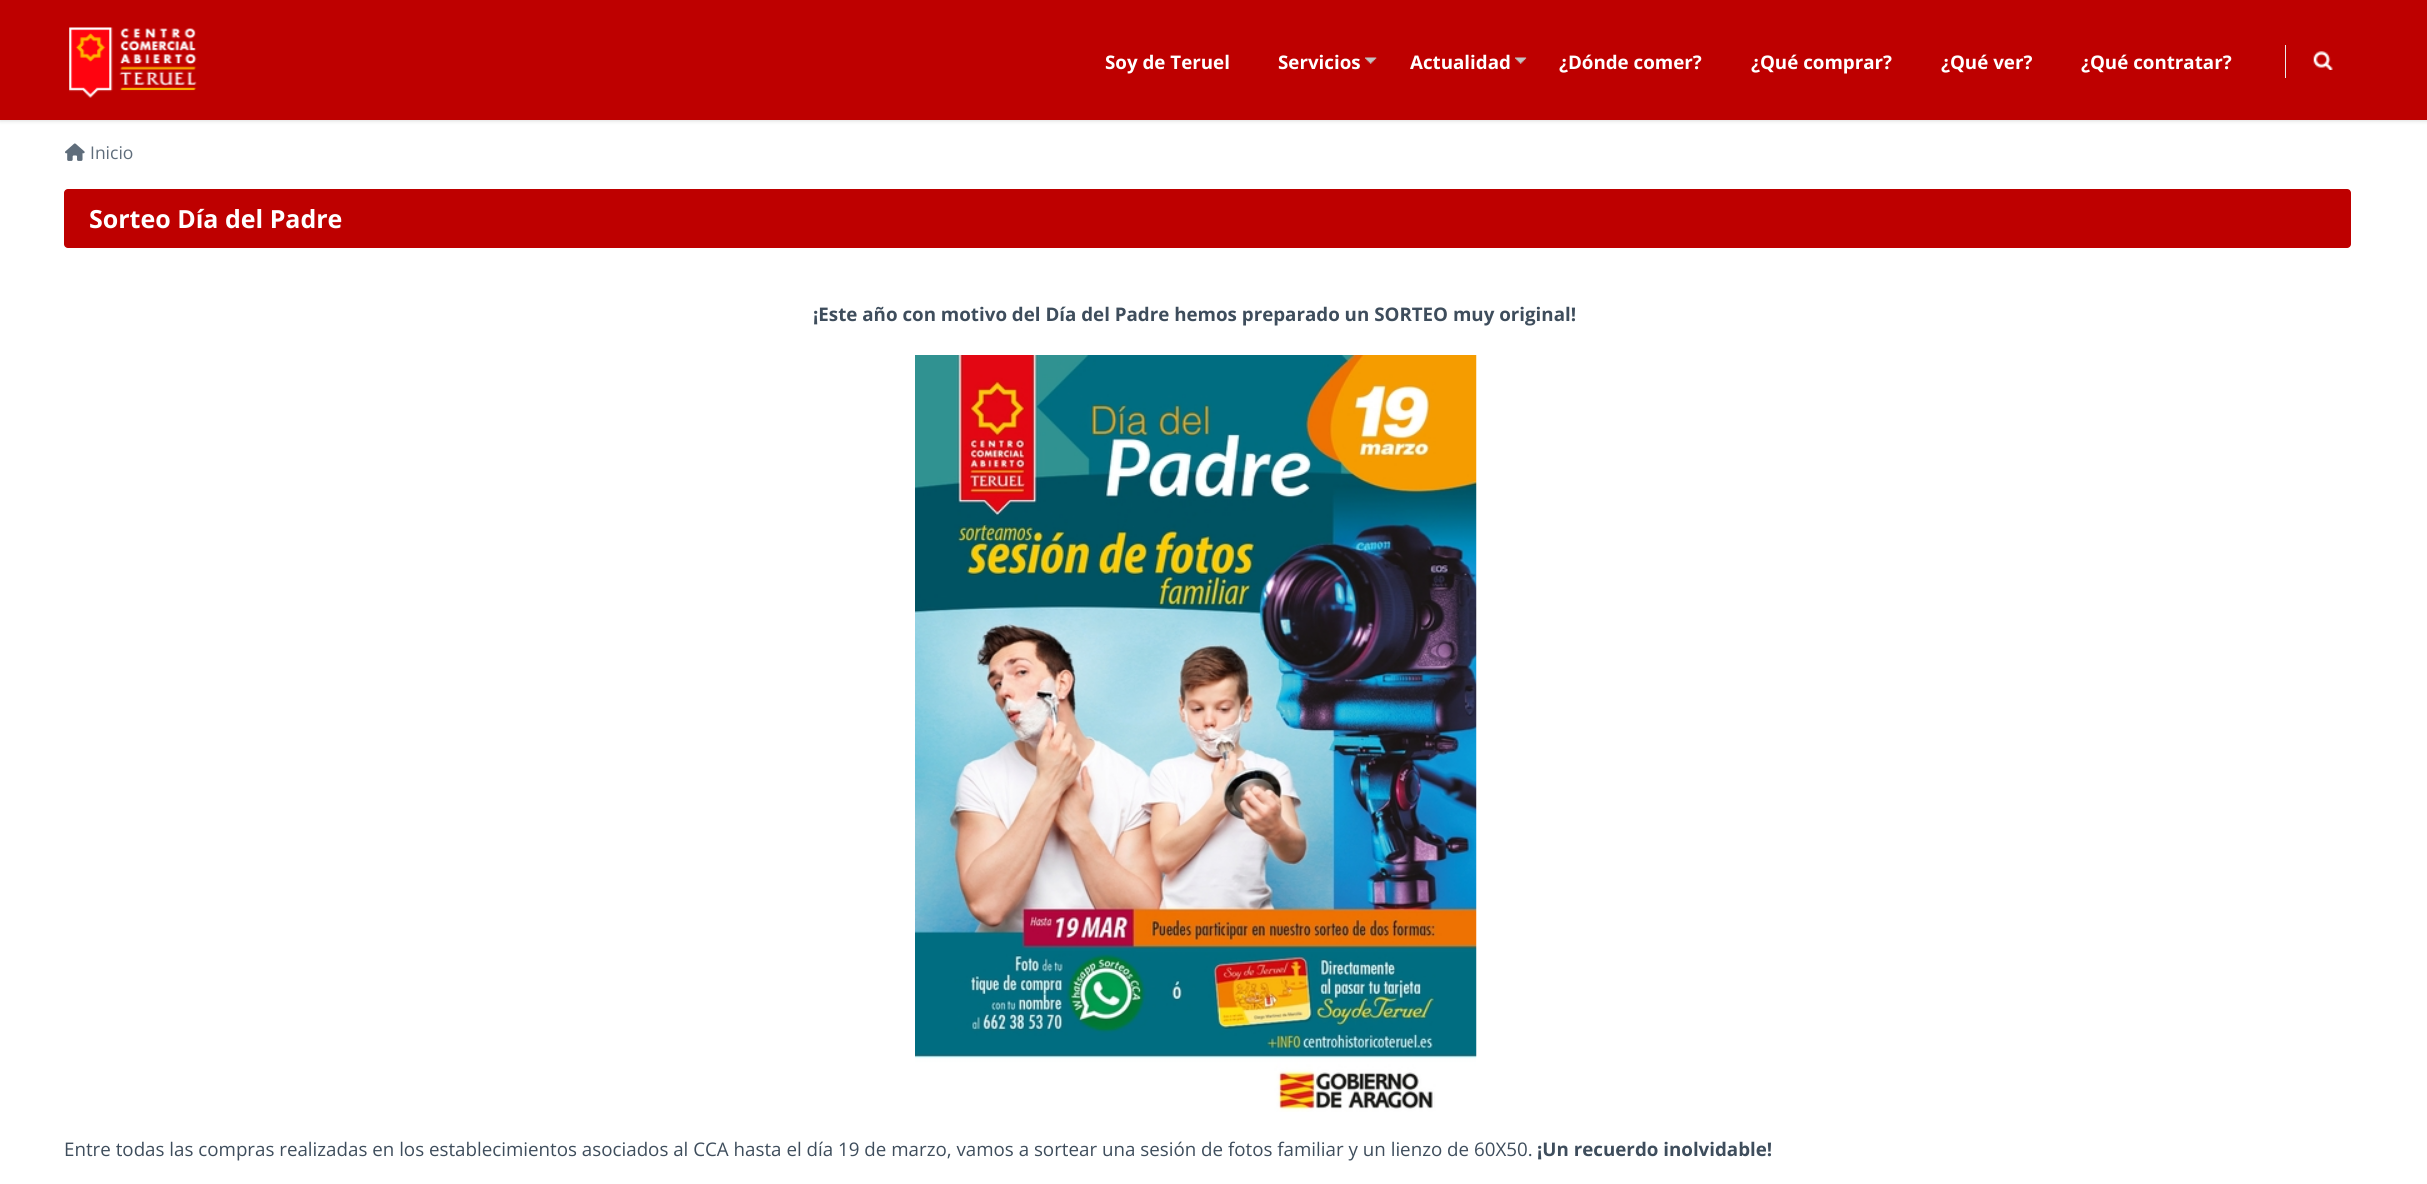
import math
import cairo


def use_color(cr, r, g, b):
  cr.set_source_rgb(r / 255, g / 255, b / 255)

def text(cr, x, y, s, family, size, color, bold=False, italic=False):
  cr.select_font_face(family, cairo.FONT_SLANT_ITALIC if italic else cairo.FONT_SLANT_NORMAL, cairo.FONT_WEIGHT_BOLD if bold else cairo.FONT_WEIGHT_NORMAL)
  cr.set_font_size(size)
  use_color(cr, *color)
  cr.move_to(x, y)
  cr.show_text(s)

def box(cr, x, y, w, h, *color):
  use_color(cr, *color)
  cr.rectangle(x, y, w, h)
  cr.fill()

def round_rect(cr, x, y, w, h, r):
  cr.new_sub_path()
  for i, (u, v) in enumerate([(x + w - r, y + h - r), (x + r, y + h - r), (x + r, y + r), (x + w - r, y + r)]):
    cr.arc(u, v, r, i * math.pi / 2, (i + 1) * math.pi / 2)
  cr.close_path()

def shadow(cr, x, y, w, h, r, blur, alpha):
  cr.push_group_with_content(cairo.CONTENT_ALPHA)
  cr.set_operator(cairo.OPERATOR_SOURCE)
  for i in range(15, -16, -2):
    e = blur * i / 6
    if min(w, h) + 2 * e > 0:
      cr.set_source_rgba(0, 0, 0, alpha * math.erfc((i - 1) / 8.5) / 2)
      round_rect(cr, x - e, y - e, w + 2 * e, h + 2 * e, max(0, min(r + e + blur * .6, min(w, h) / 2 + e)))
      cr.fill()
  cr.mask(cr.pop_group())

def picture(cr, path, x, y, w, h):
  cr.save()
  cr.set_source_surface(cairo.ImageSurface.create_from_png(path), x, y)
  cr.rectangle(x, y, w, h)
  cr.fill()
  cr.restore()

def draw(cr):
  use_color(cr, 255, 255, 255)
  cr.paint()
  use_color(cr, 221, 221, 221)
  shadow(cr, 0, 1, 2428, 120, 0, 2, 1)
  box(cr, 0, 0, 2427, 120, 190, 0, 0)
  picture(cr, "img_01.png", 69, 27, 128, 71)
  picture(cr, "img_02.png", 1365, 57, 12, 7)
  picture(cr, "img_03.png", 1515, 57, 12, 7)
  box(cr, 2285, 45, 1, 33, 234, 234, 234)
  picture(cr, "img_04.png", 2313, 51, 20, 19)
  picture(cr, "img_05.png", 65, 143, 20, 18)
  use_color(cr, 190, 0, 0)
  round_rect(cr, 64, 189, 2287, 59, 4)
  cr.fill()
  picture(cr, "img_06.png", 915, 355, 562, 757)
  text(cr, 1105, 69, "Soy de Teruel", "Open Sans", 18.75, (255, 255, 255), bold=True)
  text(cr, 1278, 69, "Servicios", "Open Sans", 18.75, (255, 255, 255), bold=True)
  text(cr, 1410, 69, "Actualidad", "Open Sans", 18.75, (255, 255, 255), bold=True)
  text(cr, 1559, 69, "¿Dónde comer?", "Open Sans", 18.75, (255, 255, 255), bold=True)
  text(cr, 1751, 69, "¿Qué comprar?", "Open Sans", 18.75, (255, 255, 255), bold=True)
  text(cr, 1941, 69, "¿Qué ver?", "Open Sans", 18.75, (255, 255, 255), bold=True)
  text(cr, 2081, 69, "¿Qué contratar?", "Open Sans", 18.75, (255, 255, 255), bold=True)
  text(cr, 90, 159, "Inicio", "Open Sans", 17.5, (95, 109, 123))
  text(cr, 89, 228, "Sorteo Día del Padre", "Open Sans", 25, (255, 255, 255), bold=True)
  text(cr, 813, 321, "¡Este año con motivo del Día del Padre hemos preparado un SORTEO muy original!", "Open Sans", 18.75, (62, 77, 92), bold=True)
  text(cr, 64, 1156, "Entre todas las compras realizadas en los establecimientos asociados al CCA hasta el día 19 de marzo, vamos a sortear una sesión de fotos familiar y un lienzo de 60X50.", "Open Sans", 18.75, (62, 77, 92))
  text(cr, 1537, 1156, "¡Un recuerdo inolvidable!", "Open Sans", 18.75, (62, 77, 92), bold=True)


surface = cairo.ImageSurface(cairo.FORMAT_RGB24, 2427, 1184)
cr = cairo.Context(surface)
options = cairo.FontOptions()
options.set_hint_metrics(cairo.HINT_METRICS_OFF)
options.set_hint_style(cairo.HINT_STYLE_NONE)
cr.set_font_options(options)
cr.set_miter_limit(4)
draw(cr)
surface.write_to_png("out.png")
